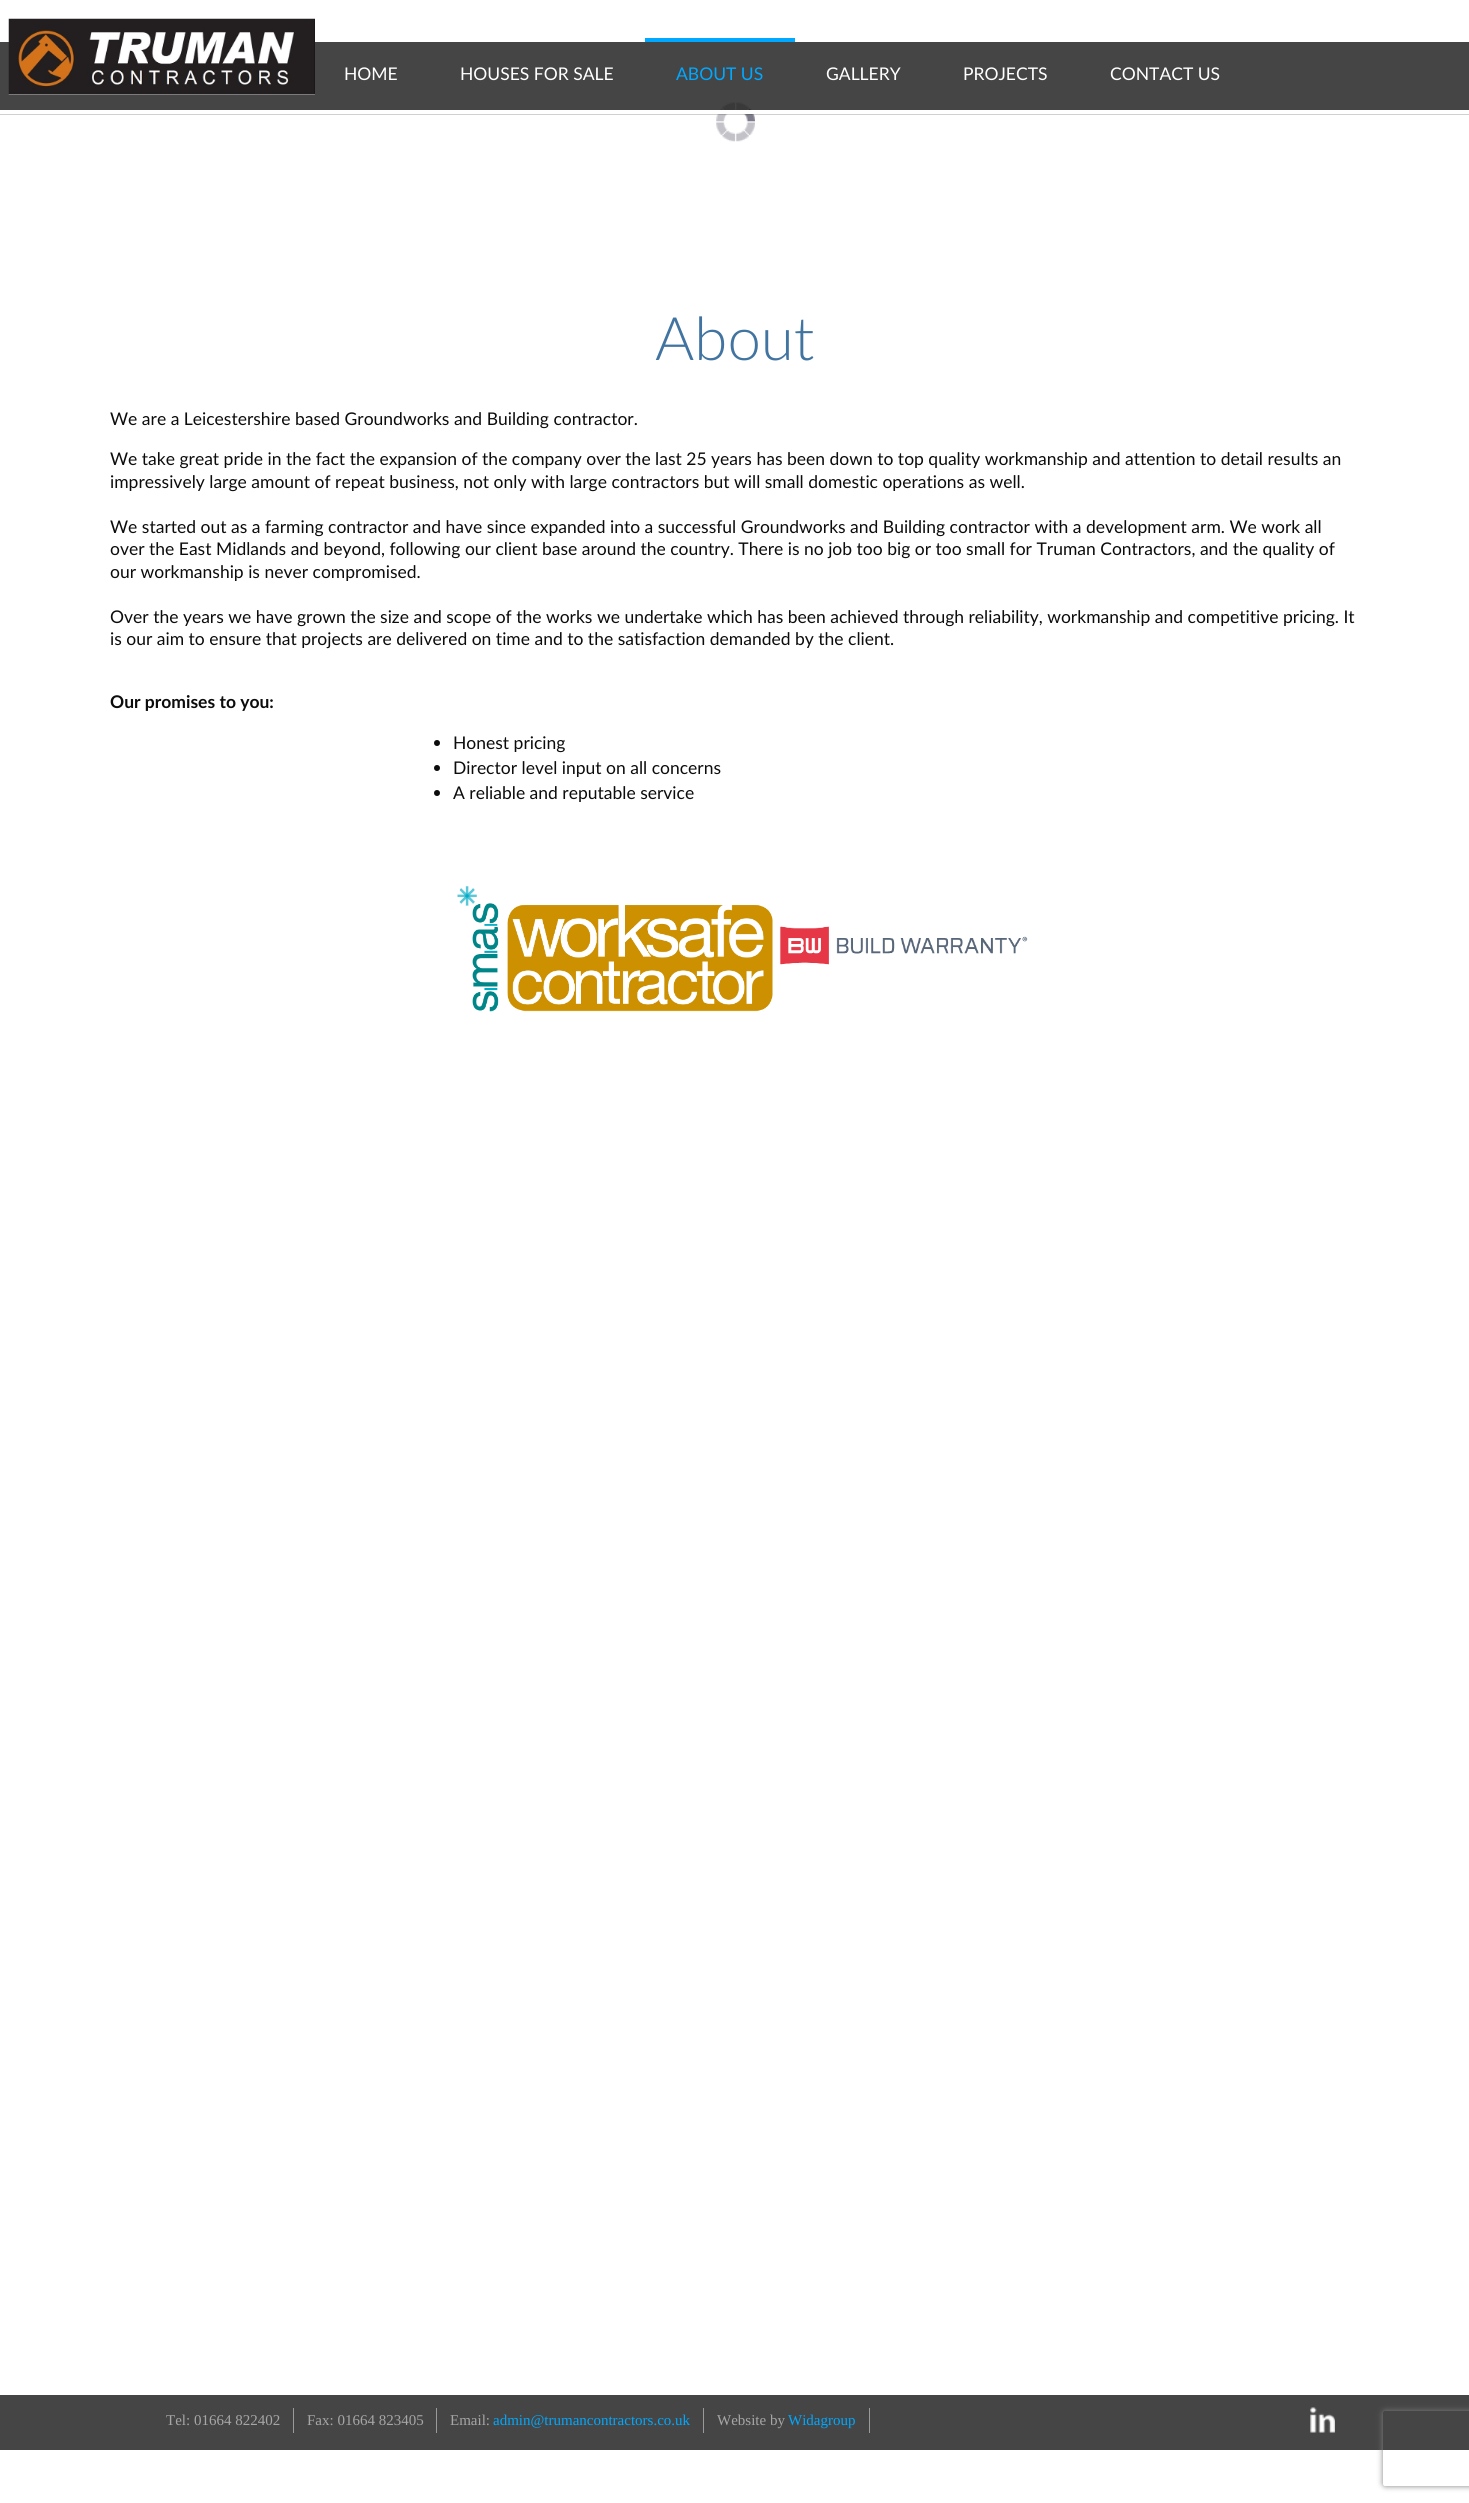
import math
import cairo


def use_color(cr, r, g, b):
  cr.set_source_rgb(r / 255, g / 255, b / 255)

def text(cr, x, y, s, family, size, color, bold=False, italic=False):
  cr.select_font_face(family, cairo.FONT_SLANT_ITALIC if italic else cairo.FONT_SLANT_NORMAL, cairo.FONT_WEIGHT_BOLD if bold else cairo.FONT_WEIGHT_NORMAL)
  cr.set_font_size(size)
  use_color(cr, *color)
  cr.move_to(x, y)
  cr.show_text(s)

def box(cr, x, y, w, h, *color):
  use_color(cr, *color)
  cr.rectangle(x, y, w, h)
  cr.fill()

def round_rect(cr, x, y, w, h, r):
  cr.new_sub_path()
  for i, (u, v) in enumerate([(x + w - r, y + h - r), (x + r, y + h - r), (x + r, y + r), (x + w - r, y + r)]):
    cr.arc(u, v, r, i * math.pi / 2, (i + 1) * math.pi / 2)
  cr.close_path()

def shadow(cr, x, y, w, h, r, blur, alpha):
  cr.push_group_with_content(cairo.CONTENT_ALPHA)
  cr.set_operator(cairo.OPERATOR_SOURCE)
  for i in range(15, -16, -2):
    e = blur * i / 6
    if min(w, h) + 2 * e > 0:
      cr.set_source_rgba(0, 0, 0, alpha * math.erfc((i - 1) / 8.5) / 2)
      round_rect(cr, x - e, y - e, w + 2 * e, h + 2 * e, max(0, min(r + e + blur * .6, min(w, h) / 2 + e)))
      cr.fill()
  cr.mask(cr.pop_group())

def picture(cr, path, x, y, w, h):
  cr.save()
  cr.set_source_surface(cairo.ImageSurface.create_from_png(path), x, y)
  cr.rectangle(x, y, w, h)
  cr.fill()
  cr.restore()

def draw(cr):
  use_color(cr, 255, 255, 255)
  cr.paint()
  picture(cr, "img_03.png", 716, 102, 39, 40)
  picture(cr, "img_02.png", 0, 42, 1469, 73)
  picture(cr, "img_01.png", 8, 18, 307, 77)
  box(cr, 0, 110, 1469, 4, 255, 255, 255)
  box(cr, 645, 38, 150, 4, 0, 168, 255)
  use_color(cr, 11, 12, 11)
  cr.arc(437, 743, 3, 0, 2 * math.pi)
  cr.fill()
  cr.arc(437, 768, 3, 0, 2 * math.pi)
  cr.fill()
  cr.arc(437, 793, 3, 0, 2 * math.pi)
  cr.fill()
  picture(cr, "img_04.png", 457, 886, 316, 126)
  picture(cr, "img_05.png", 780, 926, 248, 39)
  box(cr, 0, 2395, 1469, 55, 69, 69, 69)
  box(cr, 293, 2408, 1, 25, 153, 153, 153)
  box(cr, 436, 2408, 1, 25, 153, 153, 153)
  box(cr, 703, 2408, 1, 25, 153, 153, 153)
  box(cr, 869, 2408, 1, 25, 153, 153, 153)
  picture(cr, "img_06.png", 1310, 2407, 25, 26)
  cr.save()
  cr.set_fill_rule(cairo.FILL_RULE_EVEN_ODD)
  cr.new_path()
  cr.move_to(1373, 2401)
  cr.line_to(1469, 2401)
  cr.line_to(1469, 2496)
  cr.line_to(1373, 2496)
  cr.close_path()
  cr.move_to(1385.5, 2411)
  cr.line_to(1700.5, 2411)
  cr.curve_to(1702, 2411, 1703, 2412, 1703, 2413.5)
  cr.line_to(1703, 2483.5)
  cr.curve_to(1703, 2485, 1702, 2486, 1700.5, 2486)
  cr.line_to(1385.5, 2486)
  cr.curve_to(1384, 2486, 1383, 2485, 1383, 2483.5)
  cr.line_to(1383, 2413.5)
  cr.curve_to(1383, 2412, 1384, 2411, 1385.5, 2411)
  cr.close_path()
  cr.clip()
  use_color(cr, 128, 128, 128)
  shadow(cr, 1383, 2411, 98, 75, 2.5, 3, 1)
  cr.restore()
  text(cr, 344, 80, "HOME", "Lato", 17.5, (255, 255, 255))
  text(cr, 460, 80, "HOUSES FOR SALE", "Lato", 17.5, (255, 255, 255))
  text(cr, 676, 80, "ABOUT US", "Lato", 17.5, (0, 168, 255))
  text(cr, 826, 80, "GALLERY", "Lato", 17.5, (255, 255, 255))
  text(cr, 963, 80, "PROJECTS", "Lato", 17.5, (255, 255, 255))
  text(cr, 1110, 80, "CONTACT US", "Lato", 17.5, (255, 255, 255))
  text(cr, 655, 360, "About", "Lato Light", 60, (65, 116, 160))
  text(cr, 110, 425, "We are a Leicestershire based Groundworks and Building contractor.", "Lato", 17.5, (11, 12, 11))
  text(cr, 110, 465, "We take great pride in the fact the expansion of the company over the last 25 years has been down to top quality workmanship and attention to detail results an", "Lato", 17.5, (11, 12, 11))
  text(cr, 110, 488, "impressively large amount of repeat business, not only with large contractors but will small domestic operations as well.", "Lato", 17.5, (11, 12, 11))
  text(cr, 110, 533, "We started out as a farming contractor and have since expanded into a successful Groundworks and Building contractor with a development arm. We work all", "Lato", 17.5, (11, 12, 11))
  text(cr, 110, 555, "over the East Midlands and beyond, following our client base around the country. There is no job too big or too small for Truman Contractors, and the quality of", "Lato", 17.5, (11, 12, 11))
  text(cr, 110, 578, "our workmanship is never compromised.", "Lato", 17.5, (11, 12, 11))
  text(cr, 110, 623, "Over the years we have grown the size and scope of the works we undertake which has been achieved through reliability, workmanship and competitive pricing. It", "Lato", 17.5, (11, 12, 11))
  text(cr, 110, 645, "is our aim to ensure that projects are delivered on time and to the satisfaction demanded by the client.", "Lato", 17.5, (11, 12, 11))
  text(cr, 110, 708, "Our promises to you:", "Lato", 17.5, (11, 12, 11), bold=True)
  text(cr, 453, 749, "Honest pricing", "Lato", 17.5, (11, 12, 11))
  text(cr, 453, 774, "Director level input on all concerns", "Lato", 17.5, (11, 12, 11))
  text(cr, 453, 799, "A reliable and reputable service", "Lato", 17.5, (11, 12, 11))
  text(cr, 166, 2425, "Tel: 01664 822402", "Liberation Serif", 15, (166, 166, 166))
  text(cr, 307, 2425, "Fax: 01664 823405", "Liberation Serif", 15, (166, 166, 166))
  text(cr, 450, 2425, "Email:", "Liberation Serif", 15, (166, 166, 166))
  text(cr, 493, 2425, "admin@trumancontractors.co.uk", "Liberation Serif", 15, (0, 168, 255))
  text(cr, 717, 2425, "Website by", "Liberation Serif", 15, (166, 166, 166))
  text(cr, 788, 2425, "Widagroup", "Liberation Serif", 15, (0, 168, 255))


surface = cairo.ImageSurface(cairo.FORMAT_RGB24, 1469, 2503)
cr = cairo.Context(surface)
options = cairo.FontOptions()
options.set_hint_metrics(cairo.HINT_METRICS_OFF)
options.set_hint_style(cairo.HINT_STYLE_NONE)
cr.set_font_options(options)
cr.set_miter_limit(4)
draw(cr)
surface.write_to_png("out.png")
